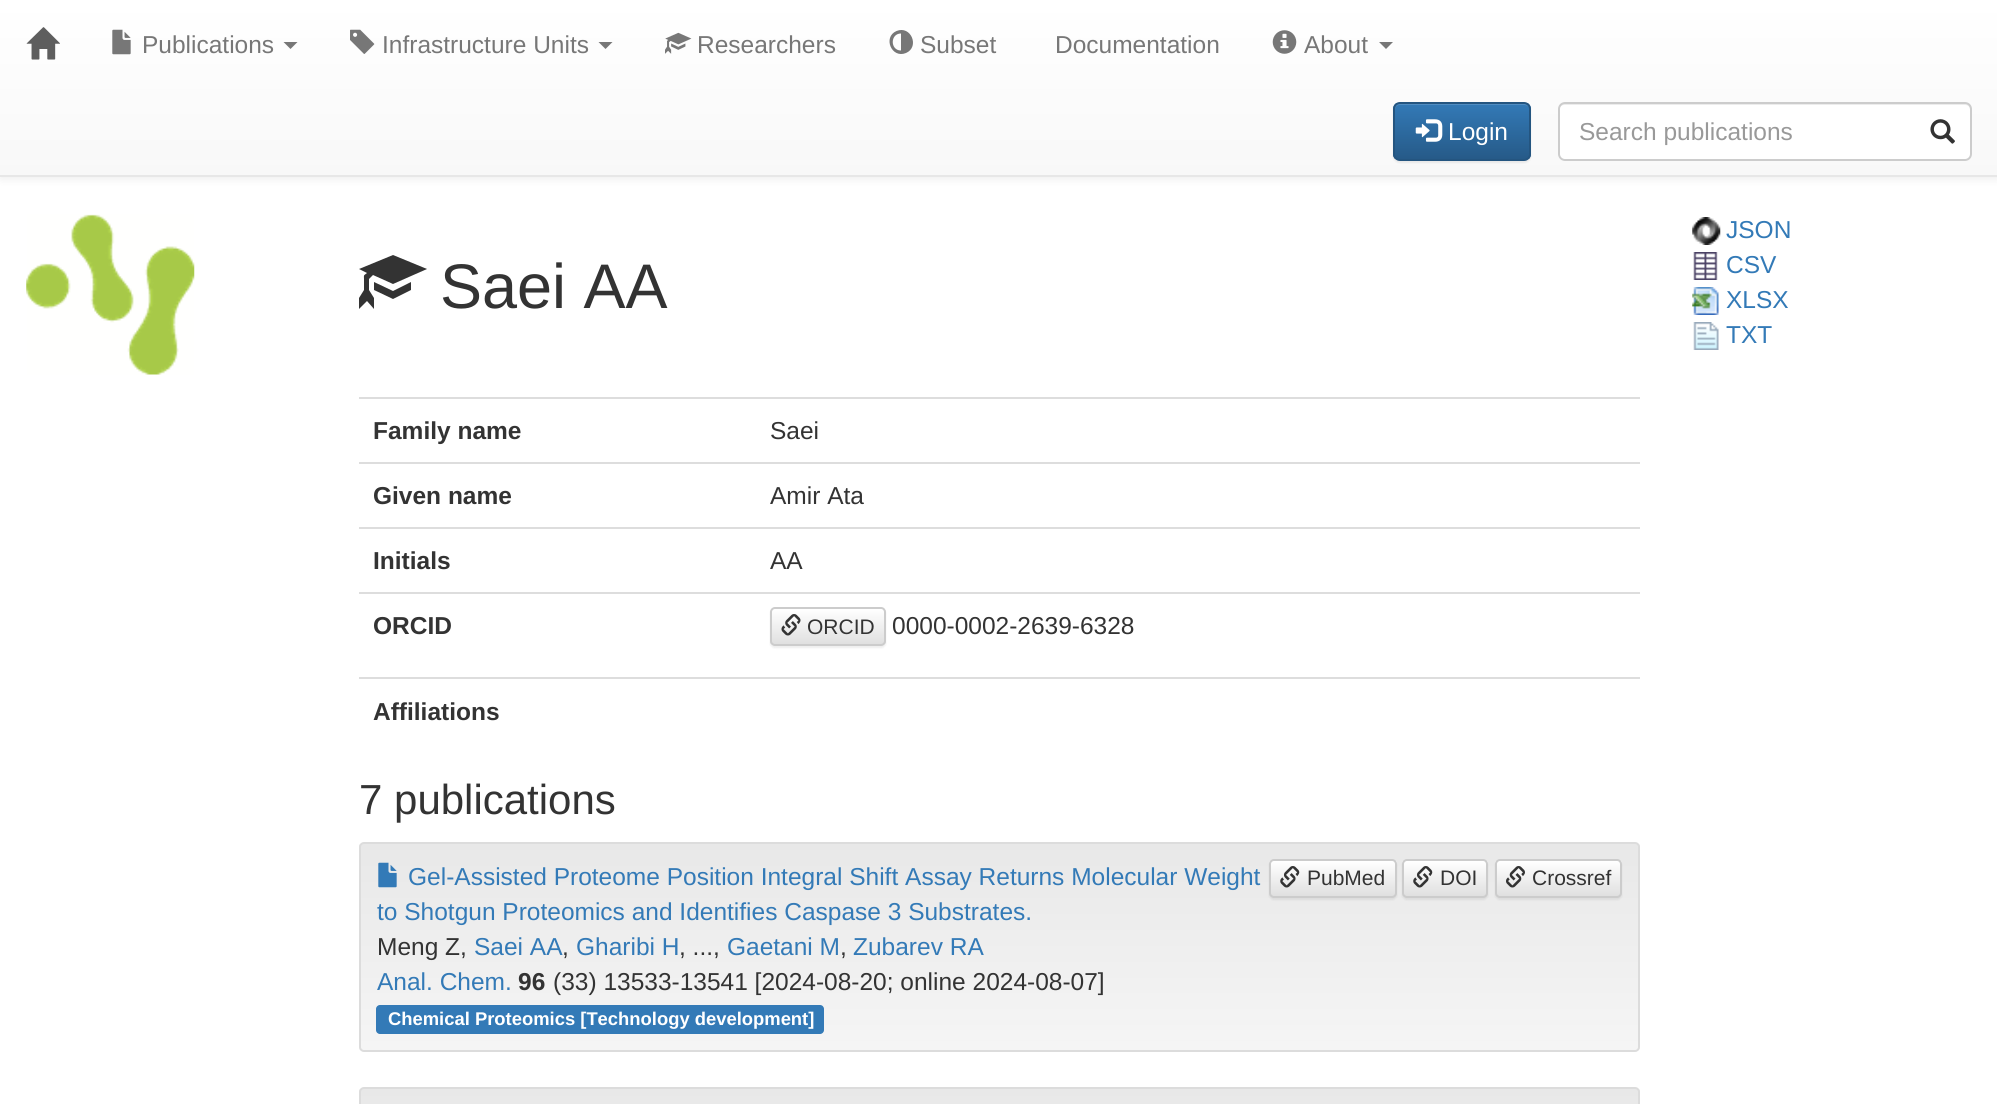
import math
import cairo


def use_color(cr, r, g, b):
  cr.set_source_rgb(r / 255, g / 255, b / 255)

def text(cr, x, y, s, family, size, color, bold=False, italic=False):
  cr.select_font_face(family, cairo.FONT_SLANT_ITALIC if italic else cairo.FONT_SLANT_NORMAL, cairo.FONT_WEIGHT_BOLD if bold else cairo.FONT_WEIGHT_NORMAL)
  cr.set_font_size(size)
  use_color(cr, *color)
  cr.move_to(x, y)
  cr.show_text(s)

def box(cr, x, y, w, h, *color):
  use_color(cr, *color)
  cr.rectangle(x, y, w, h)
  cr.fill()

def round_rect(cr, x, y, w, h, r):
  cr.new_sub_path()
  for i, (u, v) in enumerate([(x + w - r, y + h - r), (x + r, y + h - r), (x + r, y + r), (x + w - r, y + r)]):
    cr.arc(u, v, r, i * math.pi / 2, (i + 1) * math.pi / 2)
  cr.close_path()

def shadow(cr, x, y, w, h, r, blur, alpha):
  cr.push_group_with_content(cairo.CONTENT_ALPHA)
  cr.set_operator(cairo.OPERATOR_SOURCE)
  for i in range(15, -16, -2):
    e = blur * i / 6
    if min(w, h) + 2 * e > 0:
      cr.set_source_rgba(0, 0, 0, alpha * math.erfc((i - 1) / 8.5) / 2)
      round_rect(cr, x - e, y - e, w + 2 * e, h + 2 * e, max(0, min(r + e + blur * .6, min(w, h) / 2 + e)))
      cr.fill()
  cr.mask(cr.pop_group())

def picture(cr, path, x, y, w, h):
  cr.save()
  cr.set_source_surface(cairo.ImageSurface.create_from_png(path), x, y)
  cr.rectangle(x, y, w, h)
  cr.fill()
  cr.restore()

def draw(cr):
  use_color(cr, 255, 255, 255)
  cr.paint()
  use_color(cr, 0, 0, 0)
  shadow(cr, 0, 2, 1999, 177, 0, 4.5, 0.07)
  gradient = cairo.LinearGradient(999, 0, 999, 175)
  gradient.add_color_stop_rgba(0, 1, 1, 1, 1)
  gradient.add_color_stop_rgba(1, 0.973, 0.973, 0.973, 1)
  cr.set_source(gradient)
  cr.rectangle(0, 0, 1997, 175)
  cr.fill()
  box(cr, 0, 175, 1997, 2, 231, 231, 231)
  picture(cr, "img_01.png", 26, 27, 34, 33)
  picture(cr, "img_02.png", 112, 29, 19, 26)
  use_color(cr, 119, 119, 119)
  cr.new_path()
  cr.move_to(283.5, 42)
  cr.line_to(297.5, 42)
  cr.line_to(290.5, 49)
  cr.close_path()
  cr.fill()
  picture(cr, "img_03.png", 350, 29, 25, 25)
  cr.new_path()
  cr.move_to(598.5, 42)
  cr.line_to(612.5, 42)
  cr.line_to(605.5, 49)
  cr.close_path()
  cr.fill()
  picture(cr, "img_04.png", 665, 32, 27, 22)
  cr.new_path()
  cr.move_to(896.5, 31)
  cr.curve_to(911, 25, 920, 47, 906, 53)
  cr.curve_to(891.5, 59, 882.5, 37, 896.5, 31)
  cr.close_path()
  cr.move_to(901, 50.5)
  cr.line_to(901, 33.5)
  cr.curve_to(890, 33.5, 890, 50.5, 901, 50.5)
  cr.close_path()
  cr.fill()
  picture(cr, "img_05.png", 1272, 30, 25, 24)
  cr.new_path()
  cr.move_to(1379, 42)
  cr.line_to(1393, 42)
  cr.line_to(1386, 49)
  cr.close_path()
  cr.fill()
  use_color(cr, 0, 0, 0)
  shadow(cr, 1393, 103, 138, 60, 7, 1, 0.07)
  cr.save()
  round_rect(cr, 1393, 102, 138, 59, 7)
  cr.clip()
  gradient = cairo.LinearGradient(1462, 103, 1462, 159)
  gradient.add_color_stop_rgba(0, 0.2, 0.478, 0.718, 1)
  gradient.add_color_stop_rgba(1, 0.149, 0.353, 0.533, 1)
  cr.set_source(gradient)
  cr.rectangle(1393, 103, 138, 56)
  cr.fill()
  cr.restore()
  cr.set_source_rgba(1, 1, 1, 0.15)
  cr.new_path()
  cr.move_to(1400, 105)
  cr.line_to(1524, 105)
  cr.curve_to(1527, 105, 1530, 107, 1530, 110)
  cr.line_to(1530, 108)
  cr.curve_to(1530, 105, 1528, 103, 1525, 103)
  cr.line_to(1400, 103)
  cr.curve_to(1397, 103, 1395, 105, 1395, 108)
  cr.line_to(1395, 110)
  cr.curve_to(1395, 107, 1397, 105, 1400, 105)
  cr.close_path()
  cr.fill()
  round_rect(cr, 1394, 103, 136, 57, 6)
  use_color(cr, 36, 85, 128)
  cr.stroke()
  picture(cr, "img_06.png", 1415, 119, 28, 23)
  use_color(cr, 255, 255, 255)
  round_rect(cr, 1558, 102, 414, 59, 7)
  cr.fill()
  use_color(cr, 236, 236, 236)
  cr.new_path()
  cr.move_to(1564, 105)
  cr.line_to(1965, 105)
  cr.curve_to(1968, 105, 1970, 107, 1970, 110)
  cr.line_to(1970, 157)
  cr.curve_to(1971, 156, 1971, 155, 1971, 154)
  cr.line_to(1971, 108)
  cr.curve_to(1971, 105, 1969, 103, 1966, 103)
  cr.line_to(1564, 103)
  cr.curve_to(1561, 103, 1559, 105, 1559, 108)
  cr.line_to(1559, 110)
  cr.curve_to(1559, 107, 1562, 105, 1564, 105)
  cr.close_path()
  cr.fill()
  round_rect(cr, 1559, 103, 412, 57, 6)
  use_color(cr, 204, 204, 204)
  cr.stroke()
  picture(cr, "img_07.png", 1930, 119, 25, 25)
  picture(cr, "img_08.png", 26, 214, 169, 161)
  use_color(cr, 51, 51, 51)
  cr.new_path()
  cr.move_to(427, 269)
  cr.line_to(393, 284)
  cr.line_to(373, 275)
  cr.line_to(369, 279)
  cr.line_to(369, 290)
  cr.line_to(374, 298)
  cr.line_to(374, 309)
  cr.line_to(367, 301)
  cr.line_to(359, 309)
  cr.line_to(359, 298)
  cr.line_to(364, 290)
  cr.line_to(364, 279)
  cr.curve_to(364, 275, 363, 276, 367, 273)
  cr.line_to(359, 269)
  cr.line_to(393, 255)
  cr.close_path()
  cr.move_to(411, 290)
  cr.line_to(393, 299)
  cr.line_to(374, 290)
  cr.line_to(374, 282)
  cr.line_to(393, 291)
  cr.line_to(411, 282)
  cr.close_path()
  cr.fill()
  picture(cr, "img_09.png", 1692, 217, 29, 28)
  picture(cr, "img_10.png", 1693, 252, 25, 28)
  picture(cr, "img_11.png", 1692, 287, 27, 28)
  picture(cr, "img_12.png", 1693, 322, 26, 28)
  box(cr, 359, 397, 1281, 2, 221, 221, 221)
  box(cr, 359, 462, 1281, 2, 221, 221, 221)
  box(cr, 359, 527, 1281, 2, 221, 221, 221)
  box(cr, 359, 592, 1281, 2, 221, 221, 221)
  use_color(cr, 0, 0, 0)
  shadow(cr, 770, 609, 116, 39, 5, 1, 0.07)
  cr.save()
  round_rect(cr, 770, 607, 116, 39, 5)
  cr.clip()
  gradient = cairo.LinearGradient(828, 609, 828, 644)
  gradient.add_color_stop_rgba(0, 1, 1, 1, 1)
  gradient.add_color_stop_rgba(1, 0.878, 0.878, 0.878, 1)
  cr.set_source(gradient)
  cr.rectangle(770, 609, 116, 35)
  cr.fill()
  cr.restore()
  round_rect(cr, 771, 608, 114, 37, 4)
  use_color(cr, 204, 204, 204)
  cr.stroke()
  picture(cr, "img_13.png", 781, 614, 20, 22)
  box(cr, 359, 677, 1281, 2, 221, 221, 221)
  cr.save()
  round_rect(cr, 359, 842, 1281, 210, 5)
  cr.clip()
  gradient = cairo.LinearGradient(999, 843, 999, 1050)
  gradient.add_color_stop_rgba(0, 0.91, 0.91, 0.91, 1)
  gradient.add_color_stop_rgba(1, 0.961, 0.961, 0.961, 1)
  cr.set_source(gradient)
  cr.rectangle(359, 844, 1281, 206)
  cr.fill()
  cr.restore()
  round_rect(cr, 360, 843, 1279, 208, 4)
  use_color(cr, 220, 220, 220)
  cr.stroke()
  picture(cr, "img_14.png", 378, 862, 19, 26)
  use_color(cr, 0, 0, 0)
  shadow(cr, 1269, 861, 128, 39, 5, 1, 0.07)
  cr.save()
  round_rect(cr, 1269, 859, 128, 39, 5)
  cr.clip()
  gradient = cairo.LinearGradient(1333, 861, 1333, 896)
  gradient.add_color_stop_rgba(0, 1, 1, 1, 1)
  gradient.add_color_stop_rgba(1, 0.878, 0.878, 0.878, 1)
  cr.set_source(gradient)
  cr.rectangle(1269, 861, 128, 35)
  cr.fill()
  cr.restore()
  round_rect(cr, 1270, 860, 126, 37, 4)
  use_color(cr, 204, 204, 204)
  cr.stroke()
  picture(cr, "img_15.png", 1280, 866, 20, 22)
  use_color(cr, 0, 0, 0)
  shadow(cr, 1402, 861, 86, 39, 5, 1, 0.07)
  cr.save()
  round_rect(cr, 1402, 859, 86, 39, 5)
  cr.clip()
  gradient = cairo.LinearGradient(1445, 861, 1445, 896)
  gradient.add_color_stop_rgba(0, 1, 1, 1, 1)
  gradient.add_color_stop_rgba(1, 0.878, 0.878, 0.878, 1)
  cr.set_source(gradient)
  cr.rectangle(1402, 861, 86, 35)
  cr.fill()
  cr.restore()
  round_rect(cr, 1403, 860, 84, 37, 4)
  use_color(cr, 204, 204, 204)
  cr.stroke()
  picture(cr, "img_15.png", 1413, 866, 20, 22)
  use_color(cr, 0, 0, 0)
  shadow(cr, 1495, 861, 127, 39, 5, 1, 0.07)
  cr.save()
  round_rect(cr, 1495, 859, 127, 39, 5)
  cr.clip()
  gradient = cairo.LinearGradient(1558, 861, 1558, 896)
  gradient.add_color_stop_rgba(0, 1, 1, 1, 1)
  gradient.add_color_stop_rgba(1, 0.878, 0.878, 0.878, 1)
  cr.set_source(gradient)
  cr.rectangle(1495, 861, 127, 35)
  cr.fill()
  cr.restore()
  cr.set_source_rgba(1, 1, 1, 0.15)
  cr.new_path()
  cr.move_to(1500, 863)
  cr.line_to(1617, 863)
  cr.curve_to(1619, 863, 1620, 864, 1620, 866)
  cr.line_to(1620, 895)
  cr.curve_to(1622, 892, 1621, 882, 1621, 878)
  cr.curve_to(1621, 856, 1623, 861, 1598, 861)
  cr.line_to(1520, 861)
  cr.curve_to(1517, 861, 1496, 856, 1496, 866)
  cr.curve_to(1496, 864, 1498, 863, 1500, 863)
  cr.close_path()
  cr.fill()
  round_rect(cr, 1496, 860, 125, 37, 4)
  use_color(cr, 204, 204, 204)
  cr.stroke()
  picture(cr, "img_16.png", 1506, 866, 19, 22)
  use_color(cr, 51, 122, 183)
  round_rect(cr, 376, 1005, 448, 29, 4)
  cr.fill()
  cr.save()
  round_rect(cr, 359, 1087, 1281, 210, 5)
  cr.clip()
  gradient = cairo.LinearGradient(999, 1089, 999, 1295)
  gradient.add_color_stop_rgba(0, 0.91, 0.91, 0.91, 1)
  gradient.add_color_stop_rgba(1, 0.961, 0.961, 0.961, 1)
  cr.set_source(gradient)
  cr.rectangle(359, 1089, 1281, 15)
  cr.fill()
  cr.restore()
  round_rect(cr, 360, 1088, 1279, 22, 4)
  use_color(cr, 220, 220, 220)
  cr.stroke()
  text(cr, 142, 53, "Publications", "Liberation Sans", 24.5, (119, 119, 119))
  text(cr, 382, 53, "Infrastructure Units", "Liberation Sans", 24.5, (119, 119, 119))
  text(cr, 697, 53, "Researchers", "Liberation Sans", 24.5, (119, 119, 119))
  text(cr, 920, 53, "Subset", "Liberation Sans", 24.5, (119, 119, 119))
  text(cr, 1055, 53, "Documentation", "Liberation Sans", 24.5, (119, 119, 119))
  text(cr, 1304, 53, "About", "Liberation Sans", 24.5, (119, 119, 119))
  text(cr, 1448, 140, "Login", "Liberation Sans", 24.5, (255, 255, 255))
  text(cr, 1579, 140, "Search publications", "Liberation Sans", 24.5, (153, 153, 153))
  text(cr, 440, 308, "Saei AA", "Liberation Sans", 63, (51, 51, 51))
  text(cr, 1726, 238, "JSON", "Liberation Sans", 24.5, (51, 122, 183))
  text(cr, 1726, 273, "CSV", "Liberation Sans", 24.5, (51, 122, 183))
  text(cr, 1726, 308, "XLSX", "Liberation Sans", 24.5, (51, 122, 183))
  text(cr, 1726, 343, "TXT", "Liberation Sans", 24.5, (51, 122, 183))
  text(cr, 373, 439, "Family name", "Liberation Sans", 24.5, (51, 51, 51), bold=True)
  text(cr, 770, 439, "Saei", "Liberation Sans", 24.5, (51, 51, 51))
  text(cr, 373, 504, "Given name", "Liberation Sans", 24.5, (51, 51, 51), bold=True)
  text(cr, 770, 504, "Amir Ata", "Liberation Sans", 24.5, (51, 51, 51))
  text(cr, 373, 569, "Initials", "Liberation Sans", 24.5, (51, 51, 51), bold=True)
  text(cr, 770, 569, "AA", "Liberation Sans", 24.5, (51, 51, 51))
  text(cr, 373, 634, "ORCID", "Liberation Sans", 24.5, (51, 51, 51), bold=True)
  text(cr, 807, 634, "ORCID", "Liberation Sans", 21, (51, 51, 51))
  text(cr, 892, 634, "0000-0002-2639-6328", "Liberation Sans", 24.5, (51, 51, 51))
  text(cr, 373, 720, "Affiliations", "Liberation Sans", 24.5, (51, 51, 51), bold=True)
  text(cr, 359, 814, "7 publications", "Liberation Sans", 42, (51, 51, 51))
  text(cr, 408, 885, "Gel-Assisted Proteome Position Integral Shift Assay Returns Molecular Weight", "Liberation Sans", 24.5, (51, 122, 183))
  text(cr, 377, 920, "to Shotgun Proteomics and Identifies Caspase 3 Substrates.", "Liberation Sans", 24.5, (51, 122, 183))
  text(cr, 1307, 885, "PubMed", "Liberation Sans", 21, (51, 51, 51))
  text(cr, 1440, 885, "DOI", "Liberation Sans", 21, (51, 51, 51))
  text(cr, 1532, 885, "Crossref", "Liberation Sans", 21, (51, 51, 51))
  text(cr, 377, 955, "Meng Z,", "Liberation Sans", 24.5, (51, 51, 51))
  text(cr, 474, 955, "Saei AA", "Liberation Sans", 24.5, (51, 122, 183))
  text(cr, 562, 955, ",", "Liberation Sans", 24.5, (51, 51, 51))
  text(cr, 576, 955, "Gharibi H", "Liberation Sans", 24.5, (51, 122, 183))
  text(cr, 679, 955, ", ...,", "Liberation Sans", 24.5, (51, 51, 51))
  text(cr, 727, 955, "Gaetani M", "Liberation Sans", 24.5, (51, 122, 183))
  text(cr, 840, 955, ",", "Liberation Sans", 24.5, (51, 51, 51))
  text(cr, 853, 955, "Zubarev RA", "Liberation Sans", 24.5, (51, 122, 183))
  text(cr, 377, 990, "Anal. Chem.", "Liberation Sans", 24.5, (51, 122, 183))
  text(cr, 518, 990, "96", "Liberation Sans", 24.5, (51, 51, 51), bold=True)
  text(cr, 553, 990, "(33) 13533-13541 [2024-08-20; online 2024-08-07]", "Liberation Sans", 24.5, (51, 51, 51))
  text(cr, 388, 1025, "Chemical Proteomics [Technology development]", "Liberation Sans", 18.4, (255, 255, 255), bold=True)


surface = cairo.ImageSurface(cairo.FORMAT_RGB24, 1997, 1104)
cr = cairo.Context(surface)
options = cairo.FontOptions()
options.set_hint_metrics(cairo.HINT_METRICS_OFF)
options.set_hint_style(cairo.HINT_STYLE_NONE)
cr.set_font_options(options)
cr.set_miter_limit(4)
draw(cr)
surface.write_to_png("out.png")
